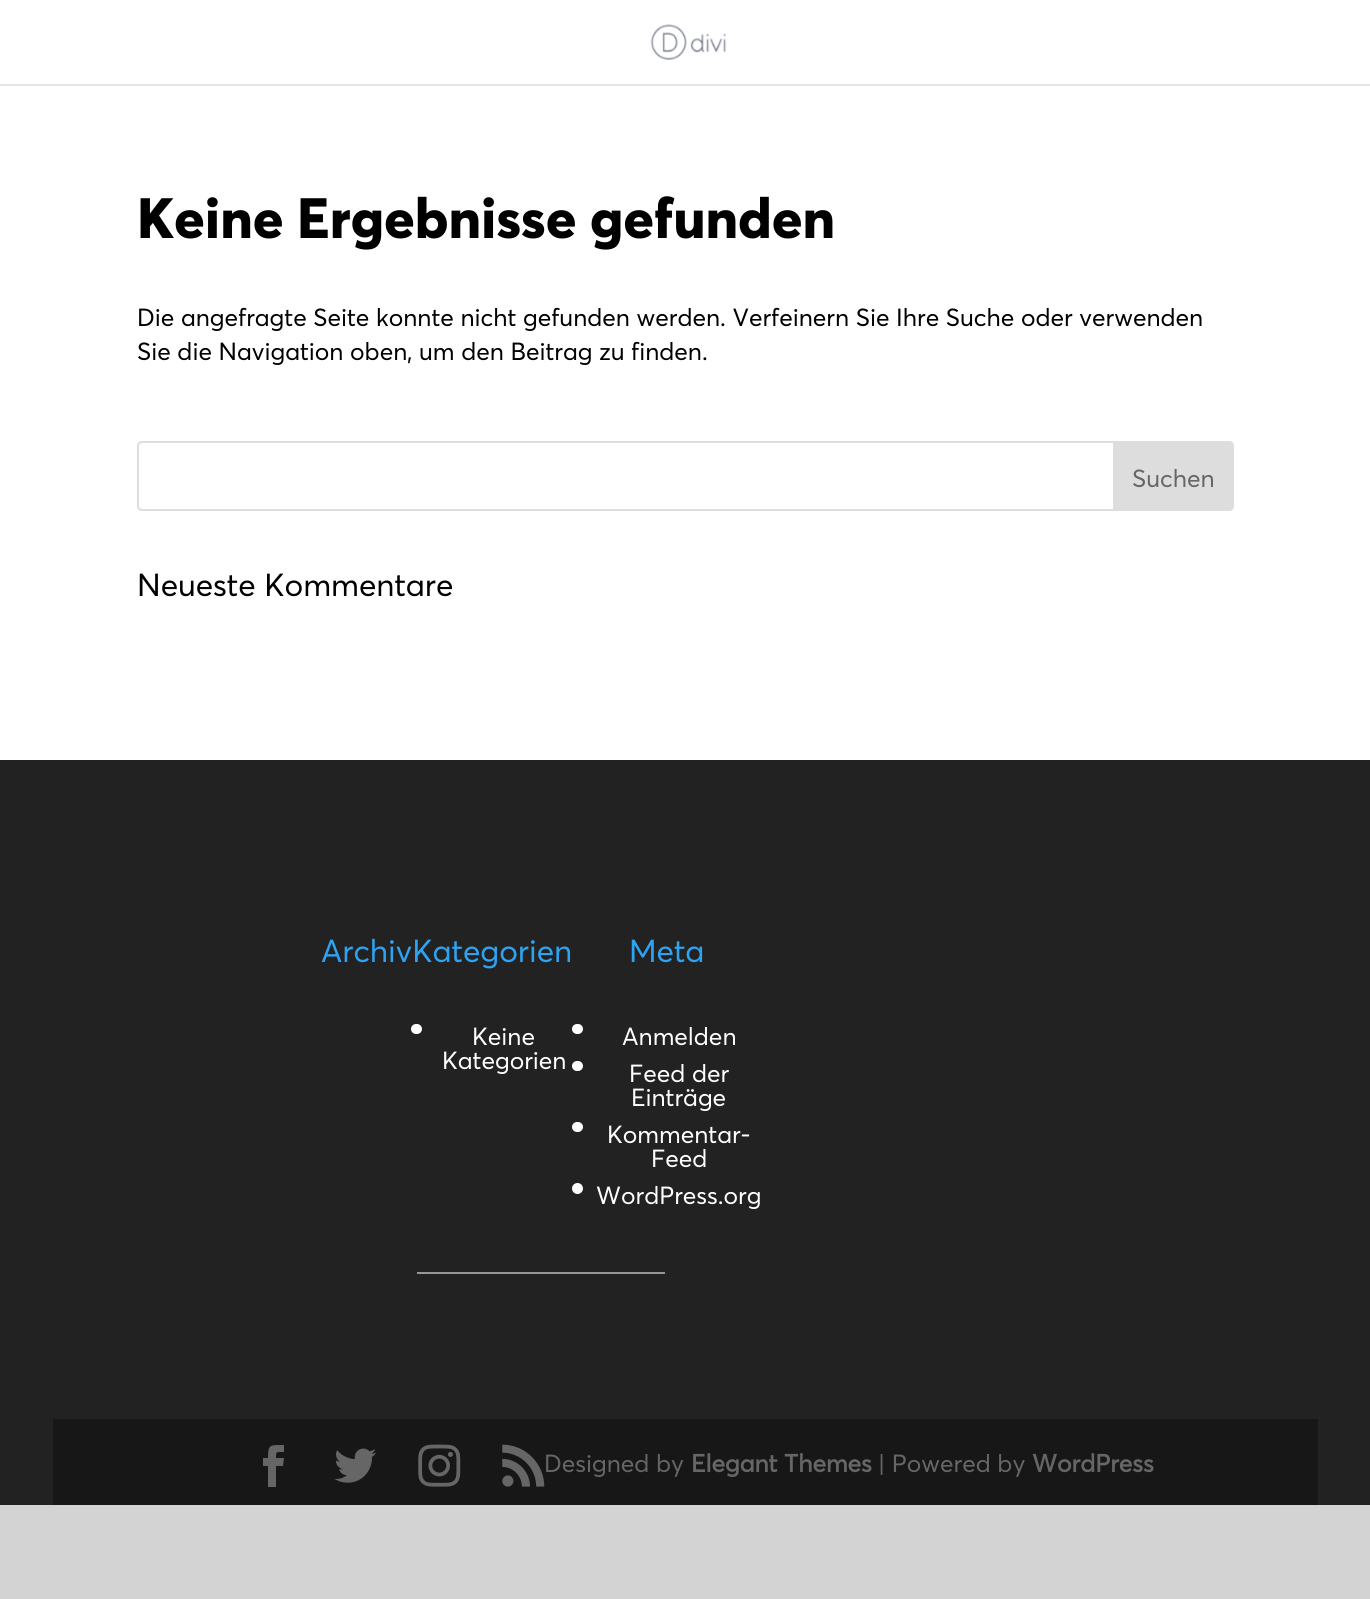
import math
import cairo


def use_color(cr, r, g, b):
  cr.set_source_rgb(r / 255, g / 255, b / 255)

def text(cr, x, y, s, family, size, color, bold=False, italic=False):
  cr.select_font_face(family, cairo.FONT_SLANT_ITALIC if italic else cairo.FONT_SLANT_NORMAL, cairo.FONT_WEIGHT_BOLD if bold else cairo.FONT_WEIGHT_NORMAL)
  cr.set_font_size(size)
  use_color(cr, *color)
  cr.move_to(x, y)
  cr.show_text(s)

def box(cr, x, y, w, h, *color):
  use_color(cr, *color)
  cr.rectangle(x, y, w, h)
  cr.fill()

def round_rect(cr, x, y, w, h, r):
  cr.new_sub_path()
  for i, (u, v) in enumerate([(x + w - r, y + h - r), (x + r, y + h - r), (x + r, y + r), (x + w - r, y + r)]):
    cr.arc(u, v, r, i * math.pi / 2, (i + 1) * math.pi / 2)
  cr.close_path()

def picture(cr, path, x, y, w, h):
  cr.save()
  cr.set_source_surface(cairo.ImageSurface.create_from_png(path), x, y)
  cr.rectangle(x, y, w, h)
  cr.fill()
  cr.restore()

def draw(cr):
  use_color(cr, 211, 211, 211)
  cr.paint()
  box(cr, 0, 84, 1370, 2, 230, 230, 230)
  box(cr, 0, 0, 1370, 84, 255, 255, 255)
  picture(cr, "img_01.png", 650, 24, 77, 36)
  box(cr, 0, 86, 1370, 674, 255, 255, 255)
  round_rect(cr, 138, 442, 1095, 68, 4)
  use_color(cr, 221, 221, 221)
  cr.stroke()
  cr.new_path()
  cr.move_to(1114, 442)
  cr.line_to(1229, 442)
  cr.curve_to(1231, 442, 1233, 444, 1233, 446)
  cr.line_to(1233, 506)
  cr.curve_to(1233, 508, 1231, 510, 1229, 510)
  cr.line_to(1114, 510)
  cr.close_path()
  cr.fill_preserve()
  cr.stroke()
  box(cr, 0, 760, 1370, 745, 34, 34, 34)
  use_color(cr, 255, 255, 255)
  round_rect(cr, 572, 1024, 11, 10, 5)
  cr.fill()
  round_rect(cr, 572, 1061, 11, 10, 5)
  cr.fill()
  round_rect(cr, 572, 1122, 11, 10, 5)
  cr.fill()
  cr.arc(577.5, 1188.5, 5.5, 0, 2 * math.pi)
  cr.fill()
  round_rect(cr, 411, 1024, 11, 10, 5)
  cr.fill()
  box(cr, 417, 1272, 248, 2, 151, 151, 151)
  box(cr, 53, 1419, 1265, 86, 23, 23, 23)
  use_color(cr, 102, 102, 102)
  cr.new_path()
  cr.move_to(268, 1487)
  cr.line_to(276, 1487)
  cr.line_to(276, 1466)
  cr.line_to(283, 1466)
  cr.line_to(284, 1458)
  cr.line_to(276, 1458)
  cr.curve_to(276, 1451, 276, 1452, 284, 1452)
  cr.line_to(284, 1445)
  cr.curve_to(270, 1445, 268, 1444, 268, 1458)
  cr.line_to(263, 1458)
  cr.line_to(263, 1466)
  cr.line_to(268, 1466)
  cr.close_path()
  cr.fill()
  picture(cr, "img_02.png", 334, 1448, 42, 35)
  picture(cr, "img_03.png", 418, 1444, 43, 43)
  picture(cr, "img_04.png", 502, 1444, 43, 43)
  text(cr, 137, 238, "Keine Ergebnisse gefunden", "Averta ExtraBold", 56, (0, 0, 0))
  text(cr, 137, 326, "Die angefragte Seite konnte nicht gefunden werden. Verfeinern Sie Ihre Suche oder verwenden", "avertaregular", 24.5, (0, 0, 0))
  text(cr, 137, 360, "Sie die Navigation oben, um den Beitrag zu finden.", "avertaregular", 24.5, (0, 0, 0))
  text(cr, 1132, 487, "Suchen", "avertaregular", 24.5, (102, 102, 102))
  text(cr, 137, 596, "Neueste Kommentare", "avertaregular", 31.5, (0, 0, 0))
  text(cr, 321, 962, "ArchivKategorien", "avertaregular", 31.5, (46, 163, 242))
  text(cr, 629, 962, "Meta", "avertaregular", 31.5, (46, 163, 242))
  text(cr, 622, 1045, "Anmelden", "avertaregular", 24.5, (255, 255, 255))
  text(cr, 629, 1082, "Feed der", "avertaregular", 24.5, (255, 255, 255))
  text(cr, 631, 1106, "Einträge", "avertaregular", 24.5, (255, 255, 255))
  text(cr, 607, 1143, "Kommentar-", "avertaregular", 24.5, (255, 255, 255))
  text(cr, 651, 1167, "Feed", "avertaregular", 24.5, (255, 255, 255))
  text(cr, 596, 1204, "WordPress.org", "avertaregular", 24.5, (255, 255, 255))
  text(cr, 472, 1045, "Keine", "avertaregular", 24.5, (255, 255, 255))
  text(cr, 442, 1069, "Kategorien", "avertaregular", 24.5, (255, 255, 255))
  text(cr, 544, 1472, "Designed by", "avertaregular", 24.5, (102, 102, 102))
  text(cr, 691, 1472, "Elegant Themes", "avertaregular", 24.5, (102, 102, 102), bold=True)
  text(cr, 878, 1472, "| Powered by", "avertaregular", 24.5, (102, 102, 102))
  text(cr, 1032, 1472, "WordPress", "avertaregular", 24.5, (102, 102, 102), bold=True)


surface = cairo.ImageSurface(cairo.FORMAT_RGB24, 1370, 1599)
cr = cairo.Context(surface)
options = cairo.FontOptions()
options.set_hint_metrics(cairo.HINT_METRICS_OFF)
options.set_hint_style(cairo.HINT_STYLE_NONE)
cr.set_font_options(options)
cr.set_miter_limit(4)
draw(cr)
surface.write_to_png("out.png")
